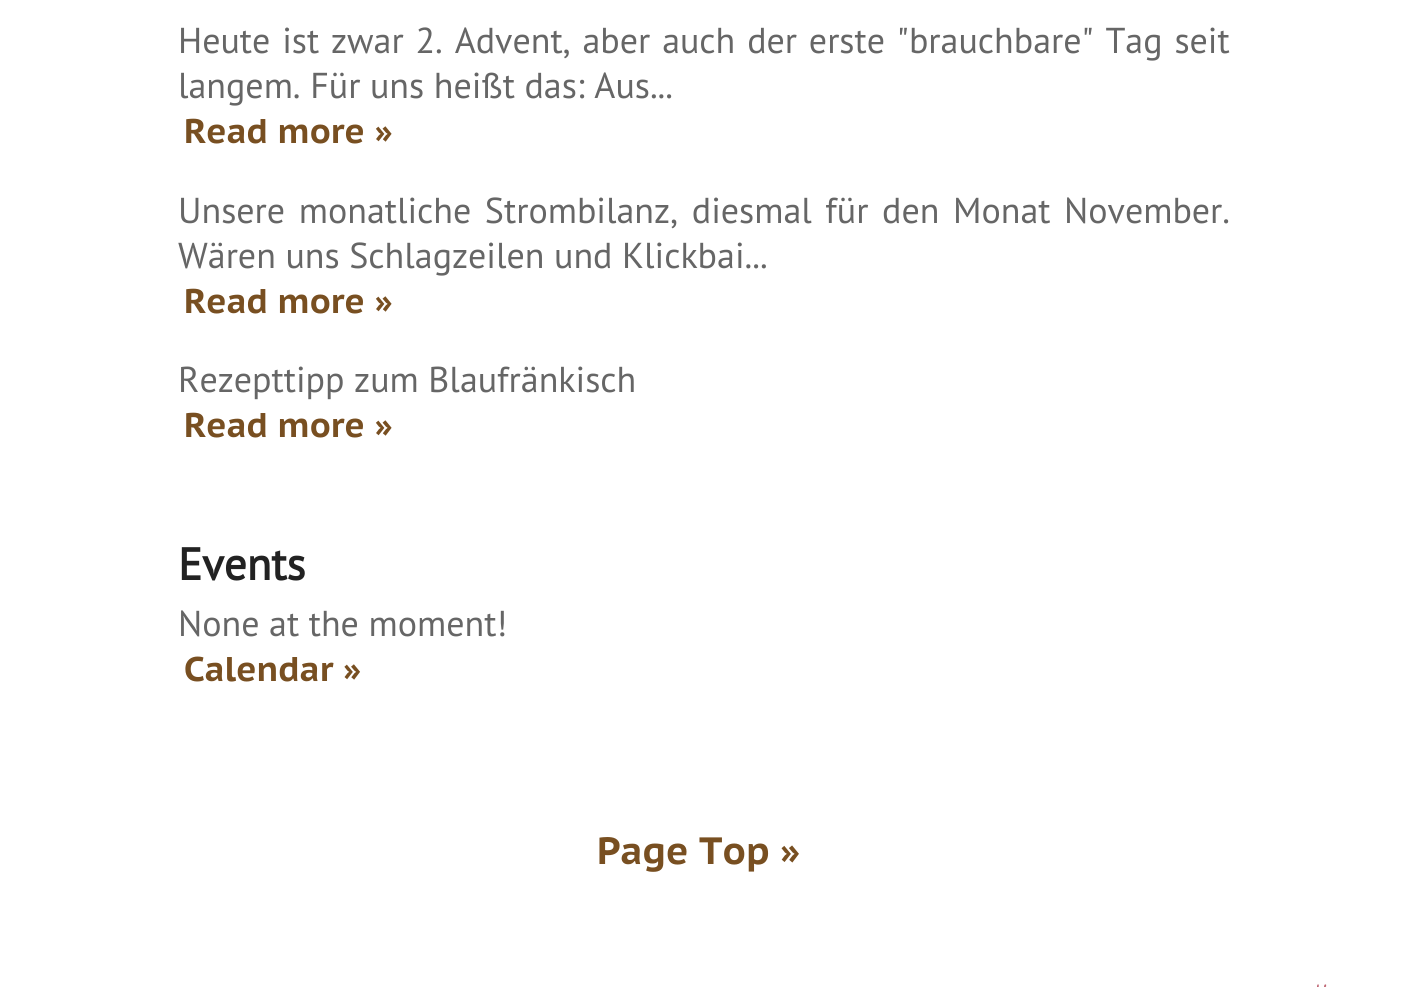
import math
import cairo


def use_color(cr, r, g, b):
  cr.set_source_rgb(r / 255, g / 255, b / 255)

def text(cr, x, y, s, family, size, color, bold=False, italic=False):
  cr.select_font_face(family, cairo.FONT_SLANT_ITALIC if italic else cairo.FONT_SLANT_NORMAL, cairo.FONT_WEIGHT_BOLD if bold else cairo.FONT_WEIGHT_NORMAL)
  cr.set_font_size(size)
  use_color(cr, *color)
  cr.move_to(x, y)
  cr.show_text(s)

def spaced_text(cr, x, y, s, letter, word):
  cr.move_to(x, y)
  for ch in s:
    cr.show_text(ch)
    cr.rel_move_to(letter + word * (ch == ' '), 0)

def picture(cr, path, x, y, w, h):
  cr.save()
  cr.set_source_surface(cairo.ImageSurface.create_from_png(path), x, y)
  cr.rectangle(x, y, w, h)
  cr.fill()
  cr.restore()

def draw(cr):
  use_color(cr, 255, 255, 255)
  cr.paint()
  picture(cr, "img_01.png", 1317, 984, 10, 3)
  cr.select_font_face("PT Sans")
  cr.set_font_size(36)
  use_color(cr, 102, 102, 102)
  spaced_text(cr, 178, 53, "Heute ist zwar 2. Advent, aber auch der erste \"brauchbare\" Tag seit", 0, 2.25)
  text(cr, 178, 98, "langem. Für uns heißt das: Aus...", "PT Sans", 36, (102, 102, 102))
  text(cr, 184, 143, "Read more »", "PT Sans Caption", 34.25, (120, 79, 33), bold=True)
  cr.select_font_face("PT Sans")
  cr.set_font_size(36)
  use_color(cr, 102, 102, 102)
  spaced_text(cr, 178, 223, "Unsere monatliche Strombilanz, diesmal für den Monat November.", 0, 4)
  text(cr, 178, 268, "Wären uns Schlagzeilen und Klickbai...", "PT Sans", 36, (102, 102, 102))
  text(cr, 184, 313, "Read more »", "PT Sans Caption", 34.25, (120, 79, 33), bold=True)
  text(cr, 178, 392, "Rezepttipp zum Blaufränkisch", "PT Sans", 36, (102, 102, 102))
  text(cr, 184, 437, "Read more »", "PT Sans Caption", 34.25, (120, 79, 33), bold=True)
  text(cr, 178, 580, "Events", "PT Sans", 45, (34, 34, 34), bold=True)
  text(cr, 178, 636, "None at the moment!", "PT Sans", 36, (102, 102, 102))
  text(cr, 184, 681, "Calendar »", "PT Sans Caption", 34.25, (120, 79, 33), bold=True)
  text(cr, 597, 864, "Page Top »", "PT Sans Caption", 38, (120, 79, 33), bold=True)


surface = cairo.ImageSurface(cairo.FORMAT_RGB24, 1407, 987)
cr = cairo.Context(surface)
options = cairo.FontOptions()
options.set_hint_metrics(cairo.HINT_METRICS_OFF)
options.set_hint_style(cairo.HINT_STYLE_NONE)
cr.set_font_options(options)
cr.set_miter_limit(4)
draw(cr)
surface.write_to_png("out.png")
